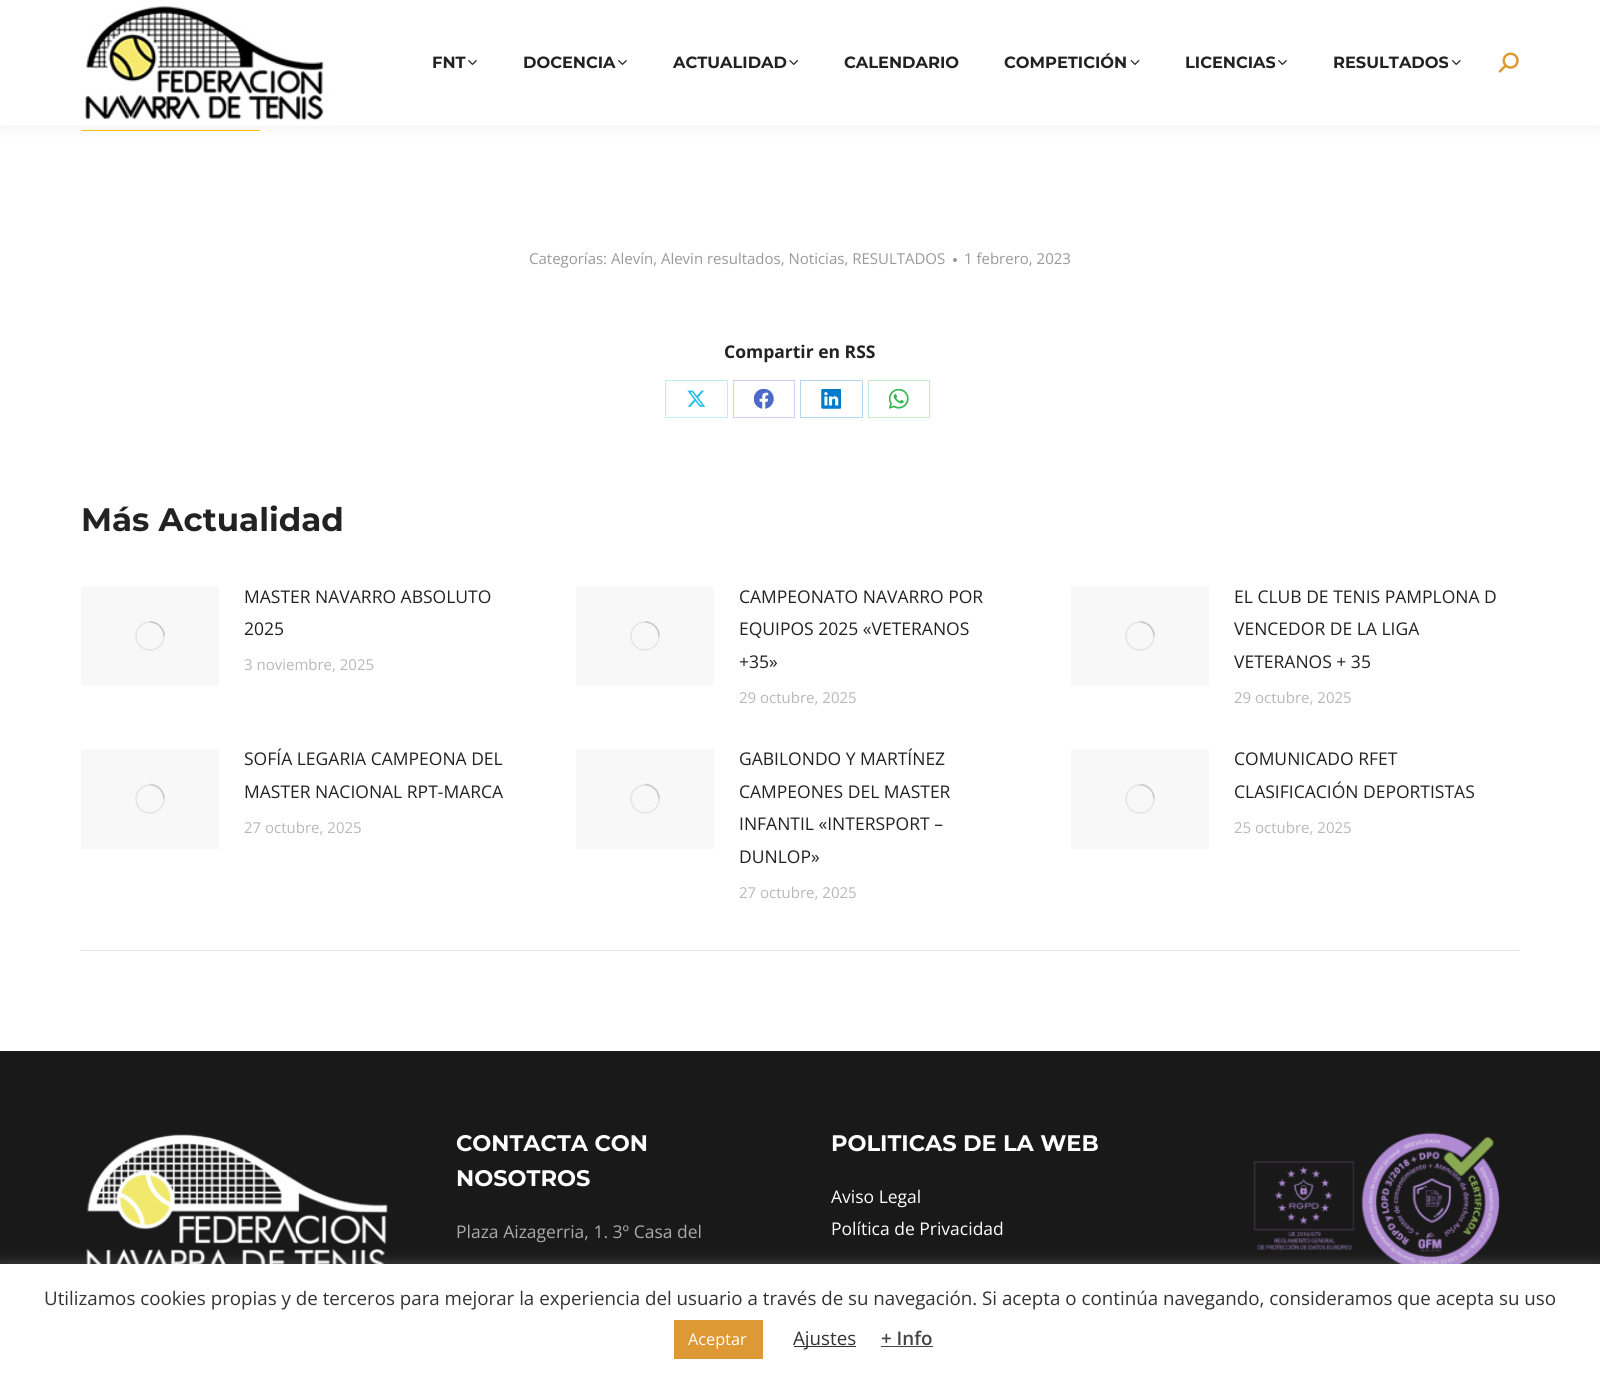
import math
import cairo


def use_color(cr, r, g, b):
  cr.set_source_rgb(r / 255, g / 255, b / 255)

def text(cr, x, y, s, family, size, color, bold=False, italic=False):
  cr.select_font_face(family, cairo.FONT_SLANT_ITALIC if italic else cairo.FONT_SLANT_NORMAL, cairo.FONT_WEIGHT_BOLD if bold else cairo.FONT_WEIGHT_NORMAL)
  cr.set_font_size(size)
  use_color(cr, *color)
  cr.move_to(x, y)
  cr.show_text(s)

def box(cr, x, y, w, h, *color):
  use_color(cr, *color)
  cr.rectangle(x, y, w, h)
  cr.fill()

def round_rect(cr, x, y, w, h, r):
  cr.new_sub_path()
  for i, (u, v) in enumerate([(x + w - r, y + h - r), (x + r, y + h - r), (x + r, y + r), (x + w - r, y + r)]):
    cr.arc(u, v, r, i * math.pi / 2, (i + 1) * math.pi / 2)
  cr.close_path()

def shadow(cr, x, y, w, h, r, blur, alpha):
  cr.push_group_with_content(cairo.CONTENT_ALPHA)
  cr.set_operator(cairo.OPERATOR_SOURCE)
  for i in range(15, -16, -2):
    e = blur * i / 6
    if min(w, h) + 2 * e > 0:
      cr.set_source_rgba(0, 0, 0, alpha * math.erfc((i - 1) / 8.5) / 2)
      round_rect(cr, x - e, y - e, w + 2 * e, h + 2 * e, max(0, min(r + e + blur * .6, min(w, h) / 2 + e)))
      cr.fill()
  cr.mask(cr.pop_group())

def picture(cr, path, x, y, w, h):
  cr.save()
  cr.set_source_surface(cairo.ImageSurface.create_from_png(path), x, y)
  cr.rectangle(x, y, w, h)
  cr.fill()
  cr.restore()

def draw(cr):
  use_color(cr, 255, 255, 255)
  cr.paint()
  box(cr, 81, 130, 179, 1, 255, 192, 0)
  use_color(cr, 0, 0, 0)
  shadow(cr, -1, -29, 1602, 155, 0, 9.5, 0.07)
  box(cr, 0, 0, 1600, 125, 255, 255, 255)
  picture(cr, "img_01.png", 81, 6, 250, 120)
  picture(cr, "img_02.png", 468, 60, 9, 5)
  picture(cr, "img_02.png", 618, 60, 9, 5)
  picture(cr, "img_03.png", 789, 60, 10, 5)
  picture(cr, "img_04.png", 1130, 60, 10, 5)
  picture(cr, "img_02.png", 1278, 60, 9, 5)
  picture(cr, "img_05.png", 1451, 60, 10, 5)
  picture(cr, "img_06.png", 1498, 52, 21, 21)
  use_color(cr, 153, 153, 153)
  cr.arc(955, 260, 2, 0, 2 * math.pi)
  cr.fill()
  cr.rectangle(665.5, 380.5, 62, 37)
  use_color(cr, 191, 236, 249)
  cr.set_line_width(1)
  cr.stroke()
  picture(cr, "img_07.png", 687, 390, 19, 17)
  cr.rectangle(733.5, 380.5, 61, 37)
  use_color(cr, 201, 210, 238)
  cr.stroke()
  picture(cr, "img_08.png", 754, 389, 20, 20)
  cr.rectangle(800.5, 380.5, 62, 37)
  use_color(cr, 179, 215, 238)
  cr.stroke()
  picture(cr, "img_09.png", 821, 389, 20, 20)
  cr.rectangle(868.5, 380.5, 61, 37)
  use_color(cr, 195, 233, 202)
  cr.stroke()
  picture(cr, "img_10.png", 889, 389, 20, 20)
  box(cr, 81, 950, 1438, 1, 230, 230, 230)
  box(cr, 81, 586, 138, 100, 248, 248, 248)
  cr.arc(150, 636, 14, 0, 2 * math.pi)
  use_color(cr, 229, 229, 229)
  cr.set_line_width(1.6)
  cr.stroke()
  cr.new_path()
  cr.move_to(164, 636)
  cr.curve_to(164, 628.5, 158, 622, 150, 622)
  cr.set_source_rgba(0.439, 0.439, 0.439, 0.25)
  cr.stroke()
  box(cr, 576, 586, 138, 100, 248, 248, 248)
  cr.arc(645, 636, 14, 0, 2 * math.pi)
  use_color(cr, 229, 229, 229)
  cr.stroke()
  cr.new_path()
  cr.move_to(659, 636)
  cr.curve_to(659, 628.5, 653, 622, 645, 622)
  cr.set_source_rgba(0.439, 0.439, 0.439, 0.25)
  cr.stroke()
  box(cr, 1071, 586, 138, 100, 248, 248, 248)
  cr.arc(1140, 636, 14, 0, 2 * math.pi)
  use_color(cr, 229, 229, 229)
  cr.stroke()
  cr.new_path()
  cr.move_to(1154, 636)
  cr.curve_to(1154, 628.5, 1148, 622, 1140, 622)
  cr.set_source_rgba(0.439, 0.439, 0.439, 0.25)
  cr.stroke()
  box(cr, 81, 749, 138, 100, 248, 248, 248)
  cr.arc(150, 799, 14, 0, 2 * math.pi)
  use_color(cr, 229, 229, 229)
  cr.stroke()
  cr.new_path()
  cr.move_to(164, 799)
  cr.curve_to(164, 791, 158, 784.5, 150, 784.5)
  cr.set_source_rgba(0.439, 0.439, 0.439, 0.25)
  cr.stroke()
  box(cr, 576, 749, 138, 100, 248, 248, 248)
  cr.arc(645, 799, 14, 0, 2 * math.pi)
  use_color(cr, 229, 229, 229)
  cr.stroke()
  cr.new_path()
  cr.move_to(659, 799)
  cr.curve_to(659, 791, 653, 784.5, 645, 784.5)
  cr.set_source_rgba(0.439, 0.439, 0.439, 0.25)
  cr.stroke()
  box(cr, 1071, 749, 138, 100, 248, 248, 248)
  cr.arc(1140, 799, 14, 0, 2 * math.pi)
  use_color(cr, 229, 229, 229)
  cr.stroke()
  cr.new_path()
  cr.move_to(1154, 799)
  cr.curve_to(1154, 791, 1148, 784.5, 1140, 784.5)
  cr.set_source_rgba(0.439, 0.439, 0.439, 0.25)
  cr.stroke()
  box(cr, 0, 1051, 1600, 213, 25, 25, 25)
  picture(cr, "img_11.png", 86, 1134, 302, 130)
  picture(cr, "img_12.png", 1253, 1132, 247, 132)
  use_color(cr, 172, 171, 171)
  shadow(cr, 0, 1263, 1600, 116, 0, 6, 0.3)
  box(cr, 0, 1264, 1600, 115, 255, 255, 255)
  box(cr, 674, 1320, 89, 39, 221, 153, 51)
  box(cr, 794, 1346, 62, 1, 51, 51, 51)
  box(cr, 881, 1346, 52, 1, 68, 68, 68)
  text(cr, 432, 68, "FNT", "Montserrat", 16.25, (34, 34, 34), bold=True)
  text(cr, 523, 68, "DOCENCIA", "Montserrat", 16.25, (34, 34, 34), bold=True)
  text(cr, 673, 68, "ACTUALIDAD", "Montserrat", 16.25, (34, 34, 34), bold=True)
  text(cr, 844, 68, "CALENDARIO", "Montserrat", 16.25, (34, 34, 34), bold=True)
  text(cr, 1004, 68, "COMPETICIÓN", "Montserrat", 16.25, (34, 34, 34), bold=True)
  text(cr, 1185, 68, "LICENCIAS", "Montserrat", 16.25, (34, 34, 34), bold=True)
  text(cr, 1333, 68, "RESULTADOS", "Montserrat", 16.25, (34, 34, 34), bold=True)
  text(cr, 529, 264, "Categorías: Alevín, Alevin resultados, Noticias, RESULTADOS", "Open Sans", 15, (153, 153, 153))
  text(cr, 964, 264, "1 febrero, 2023", "Open Sans", 15, (153, 153, 153))
  text(cr, 724, 358, "Compartir en RSS", "Open Sans", 17.5, (34, 34, 34), bold=True)
  text(cr, 81, 531, "Más Actualidad", "Montserrat", 32.5, (34, 34, 34), bold=True)
  text(cr, 244, 603, "MASTER NAVARRO ABSOLUTO", "Open Sans", 17.5, (34, 34, 34))
  text(cr, 244, 635, "2025", "Open Sans", 17.5, (34, 34, 34))
  text(cr, 244, 670, "3 noviembre, 2025", "Open Sans", 15, (184, 184, 184))
  text(cr, 739, 603, "CAMPEONATO NAVARRO POR", "Open Sans", 17.5, (34, 34, 34))
  text(cr, 739, 635, "EQUIPOS 2025 «VETERANOS", "Open Sans", 17.5, (34, 34, 34))
  text(cr, 739, 668, "+35»", "Open Sans", 17.5, (34, 34, 34))
  text(cr, 739, 703, "29 octubre, 2025", "Open Sans", 15, (184, 184, 184))
  text(cr, 1234, 603, "EL CLUB DE TENIS PAMPLONA D", "Open Sans", 17.5, (34, 34, 34))
  text(cr, 1234, 635, "VENCEDOR DE LA LIGA", "Open Sans", 17.5, (34, 34, 34))
  text(cr, 1234, 668, "VETERANOS + 35", "Open Sans", 17.5, (34, 34, 34))
  text(cr, 1234, 703, "29 octubre, 2025", "Open Sans", 15, (184, 184, 184))
  text(cr, 244, 765, "SOFÍA LEGARIA CAMPEONA DEL", "Open Sans", 17.5, (34, 34, 34))
  text(cr, 244, 798, "MASTER NACIONAL RPT-MARCA", "Open Sans", 17.5, (34, 34, 34))
  text(cr, 244, 833, "27 octubre, 2025", "Open Sans", 15, (184, 184, 184))
  text(cr, 739, 765, "GABILONDO Y MARTÍNEZ", "Open Sans", 17.5, (34, 34, 34))
  text(cr, 739, 798, "CAMPEONES DEL MASTER", "Open Sans", 17.5, (34, 34, 34))
  text(cr, 739, 830, "INFANTIL «INTERSPORT –", "Open Sans", 17.5, (34, 34, 34))
  text(cr, 739, 863, "DUNLOP»", "Open Sans", 17.5, (34, 34, 34))
  text(cr, 739, 898, "27 octubre, 2025", "Open Sans", 15, (184, 184, 184))
  text(cr, 1234, 765, "COMUNICADO RFET", "Open Sans", 17.5, (34, 34, 34))
  text(cr, 1234, 798, "CLASIFICACIÓN DEPORTISTAS", "Open Sans", 17.5, (34, 34, 34))
  text(cr, 1234, 833, "25 octubre, 2025", "Open Sans", 15, (184, 184, 184))
  text(cr, 456, 1151, "CONTACTA CON", "Montserrat", 22.5, (255, 255, 255), bold=True)
  text(cr, 456, 1186, "NOSOTROS", "Montserrat", 22.5, (255, 255, 255), bold=True)
  text(cr, 456, 1238, "Plaza Aizagerria, 1. 3º Casa del", "Open Sans", 17.5, (170, 170, 170))
  text(cr, 831, 1151, "POLITICAS DE LA WEB", "Montserrat", 22.5, (255, 255, 255), bold=True)
  text(cr, 831, 1203, "Aviso Legal", "Open Sans", 17.5, (255, 255, 255))
  text(cr, 831, 1235, "Política de Privacidad", "Open Sans", 17.5, (255, 255, 255))
  text(cr, 44, 1305, "Utilizamos cookies propias y de terceros para mejorar la experiencia del usuario a través de su navegación. Si acepta o continúa navegando, consideramos que acepta su uso", "Open Sans", 18.75, (51, 51, 51))
  text(cr, 688, 1345, "Aceptar", "Open Sans", 16.25, (255, 255, 255))
  text(cr, 793, 1345, "Ajustes", "Open Sans", 18.75, (51, 51, 51))
  text(cr, 881, 1345, "+ Info", "Open Sans SemiBold", 18.75, (68, 68, 68))


surface = cairo.ImageSurface(cairo.FORMAT_RGB24, 1600, 1379)
cr = cairo.Context(surface)
options = cairo.FontOptions()
options.set_hint_metrics(cairo.HINT_METRICS_OFF)
options.set_hint_style(cairo.HINT_STYLE_NONE)
cr.set_font_options(options)
cr.set_miter_limit(4)
draw(cr)
surface.write_to_png("out.png")
